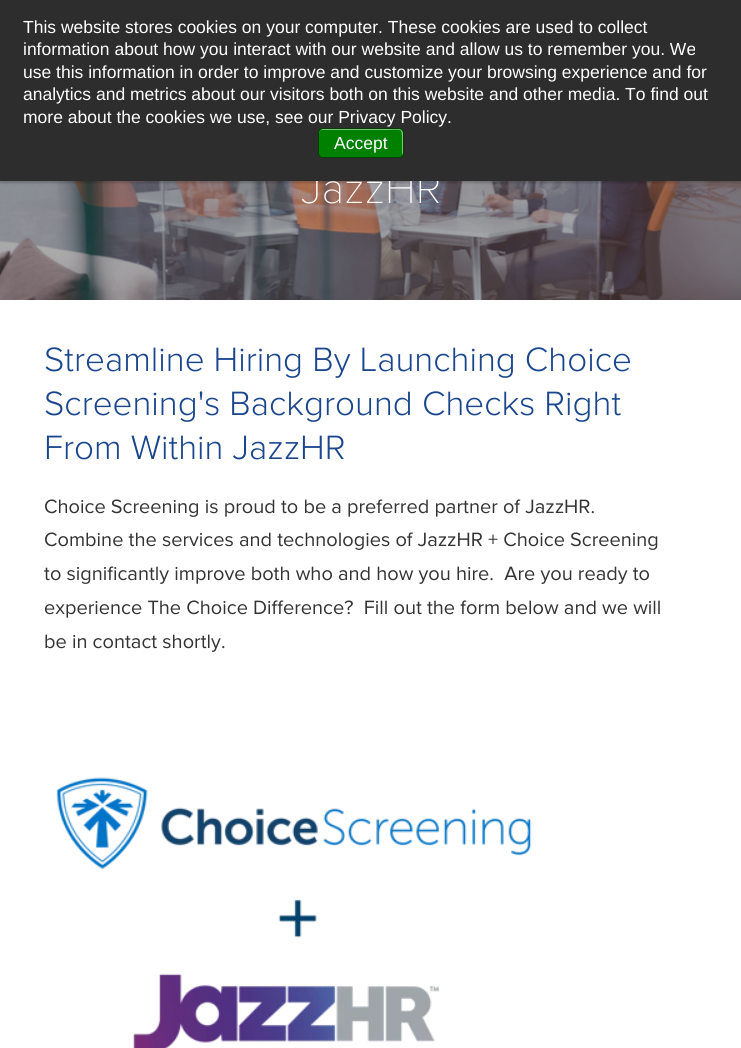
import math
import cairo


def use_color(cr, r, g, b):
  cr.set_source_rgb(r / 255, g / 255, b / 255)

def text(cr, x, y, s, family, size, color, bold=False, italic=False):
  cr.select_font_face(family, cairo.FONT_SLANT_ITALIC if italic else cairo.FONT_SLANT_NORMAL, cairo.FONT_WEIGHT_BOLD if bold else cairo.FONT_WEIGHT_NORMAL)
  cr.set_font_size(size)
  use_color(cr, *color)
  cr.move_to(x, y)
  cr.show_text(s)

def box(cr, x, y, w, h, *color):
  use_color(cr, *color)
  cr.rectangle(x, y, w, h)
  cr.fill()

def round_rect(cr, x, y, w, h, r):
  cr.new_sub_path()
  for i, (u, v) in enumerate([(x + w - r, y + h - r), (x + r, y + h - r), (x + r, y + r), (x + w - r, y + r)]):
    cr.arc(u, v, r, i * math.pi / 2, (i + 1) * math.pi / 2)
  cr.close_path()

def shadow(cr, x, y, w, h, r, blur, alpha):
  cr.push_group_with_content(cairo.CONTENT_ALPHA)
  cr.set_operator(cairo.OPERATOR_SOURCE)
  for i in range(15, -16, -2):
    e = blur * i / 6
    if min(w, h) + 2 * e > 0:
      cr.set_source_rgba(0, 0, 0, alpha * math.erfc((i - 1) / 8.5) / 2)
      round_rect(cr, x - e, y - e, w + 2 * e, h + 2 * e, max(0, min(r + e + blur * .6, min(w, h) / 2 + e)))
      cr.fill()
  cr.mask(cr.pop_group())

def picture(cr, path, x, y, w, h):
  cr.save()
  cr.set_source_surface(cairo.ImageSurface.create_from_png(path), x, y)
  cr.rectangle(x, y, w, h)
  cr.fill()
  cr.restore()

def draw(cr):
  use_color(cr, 255, 255, 255)
  cr.paint()
  picture(cr, "img_01.png", 0, 181, 741, 119)
  use_color(cr, 0, 0, 0)
  shadow(cr, 0, 1, 741, 182, 0, 1, 0.2)
  picture(cr, "img_02.png", 56, 777, 476, 271)
  text(cr, 301, 203, "JazzHR", "Proxima Nova Thin", 44, (255, 255, 255))
  box(cr, 0, 0, 741, 181, 45, 45, 45)
  use_color(cr, 0, 128, 0)
  round_rect(cr, 318, 128, 86, 30, 5)
  cr.fill()
  use_color(cr, 128, 192, 128)
  cr.new_path()
  cr.move_to(322, 130)
  cr.line_to(386, 130)
  cr.curve_to(402, 130, 402, 127, 402, 141)
  cr.line_to(402, 155)
  cr.curve_to(403, 154, 403, 153, 403, 152)
  cr.line_to(403, 133)
  cr.curve_to(403, 131, 401, 129, 399, 129)
  cr.line_to(323, 129)
  cr.curve_to(321, 129, 319, 131, 319, 133)
  cr.line_to(319, 134)
  cr.curve_to(319, 132, 320, 130, 322, 130)
  cr.close_path()
  cr.fill()
  round_rect(cr, 318.5, 128.5, 85, 29, 4.5)
  cr.set_source_rgba(0, 0, 0, 0.5)
  cr.set_line_width(1)
  cr.stroke()
  text(cr, 334, 149, "Accept", "Liberation Sans", 17.5, (255, 255, 255))
  text(cr, 23, 123, "more about the cookies we use, see our Privacy Policy.", "Liberation Sans", 17.5, (255, 255, 255))
  text(cr, 23, 100, "analytics and metrics about our visitors both on this website and other media. To find out", "Liberation Sans", 17.5, (255, 255, 255))
  text(cr, 23, 78, "use this information in order to improve and customize your browsing experience and for", "Liberation Sans", 17.5, (255, 255, 255))
  text(cr, 23, 55, "information about how you interact with our website and allow us to remember you. We", "Liberation Sans", 17.5, (255, 255, 255))
  text(cr, 23, 33, "This website stores cookies on your computer. These cookies are used to collect", "Liberation Sans", 17.5, (255, 255, 255))
  text(cr, 44, 371, "Streamline Hiring By Launching Choice", "Proxima Nova Light", 35, (26, 70, 141))
  text(cr, 44, 415, "Screening's Background Checks Right", "Proxima Nova Light", 35, (26, 70, 141))
  text(cr, 44, 459, "From Within JazzHR", "Proxima Nova Light", 35, (26, 70, 141))
  text(cr, 44, 513, "Choice Screening is proud to be a preferred partner of JazzHR.", "Proxima Nova", 20, (51, 51, 51))
  text(cr, 44, 546, "Combine the services and technologies of JazzHR + Choice Screening", "Proxima Nova", 20, (51, 51, 51))
  text(cr, 44, 580, "to significantly improve both who and how you hire.  Are you ready to", "Proxima Nova", 20, (51, 51, 51))
  text(cr, 44, 614, "experience The Choice Difference?  Fill out the form below and we will", "Proxima Nova", 20, (51, 51, 51))
  text(cr, 44, 648, "be in contact shortly.", "Proxima Nova", 20, (51, 51, 51))


surface = cairo.ImageSurface(cairo.FORMAT_RGB24, 741, 1048)
cr = cairo.Context(surface)
options = cairo.FontOptions()
options.set_hint_metrics(cairo.HINT_METRICS_OFF)
options.set_hint_style(cairo.HINT_STYLE_NONE)
cr.set_font_options(options)
cr.set_miter_limit(4)
draw(cr)
surface.write_to_png("out.png")
